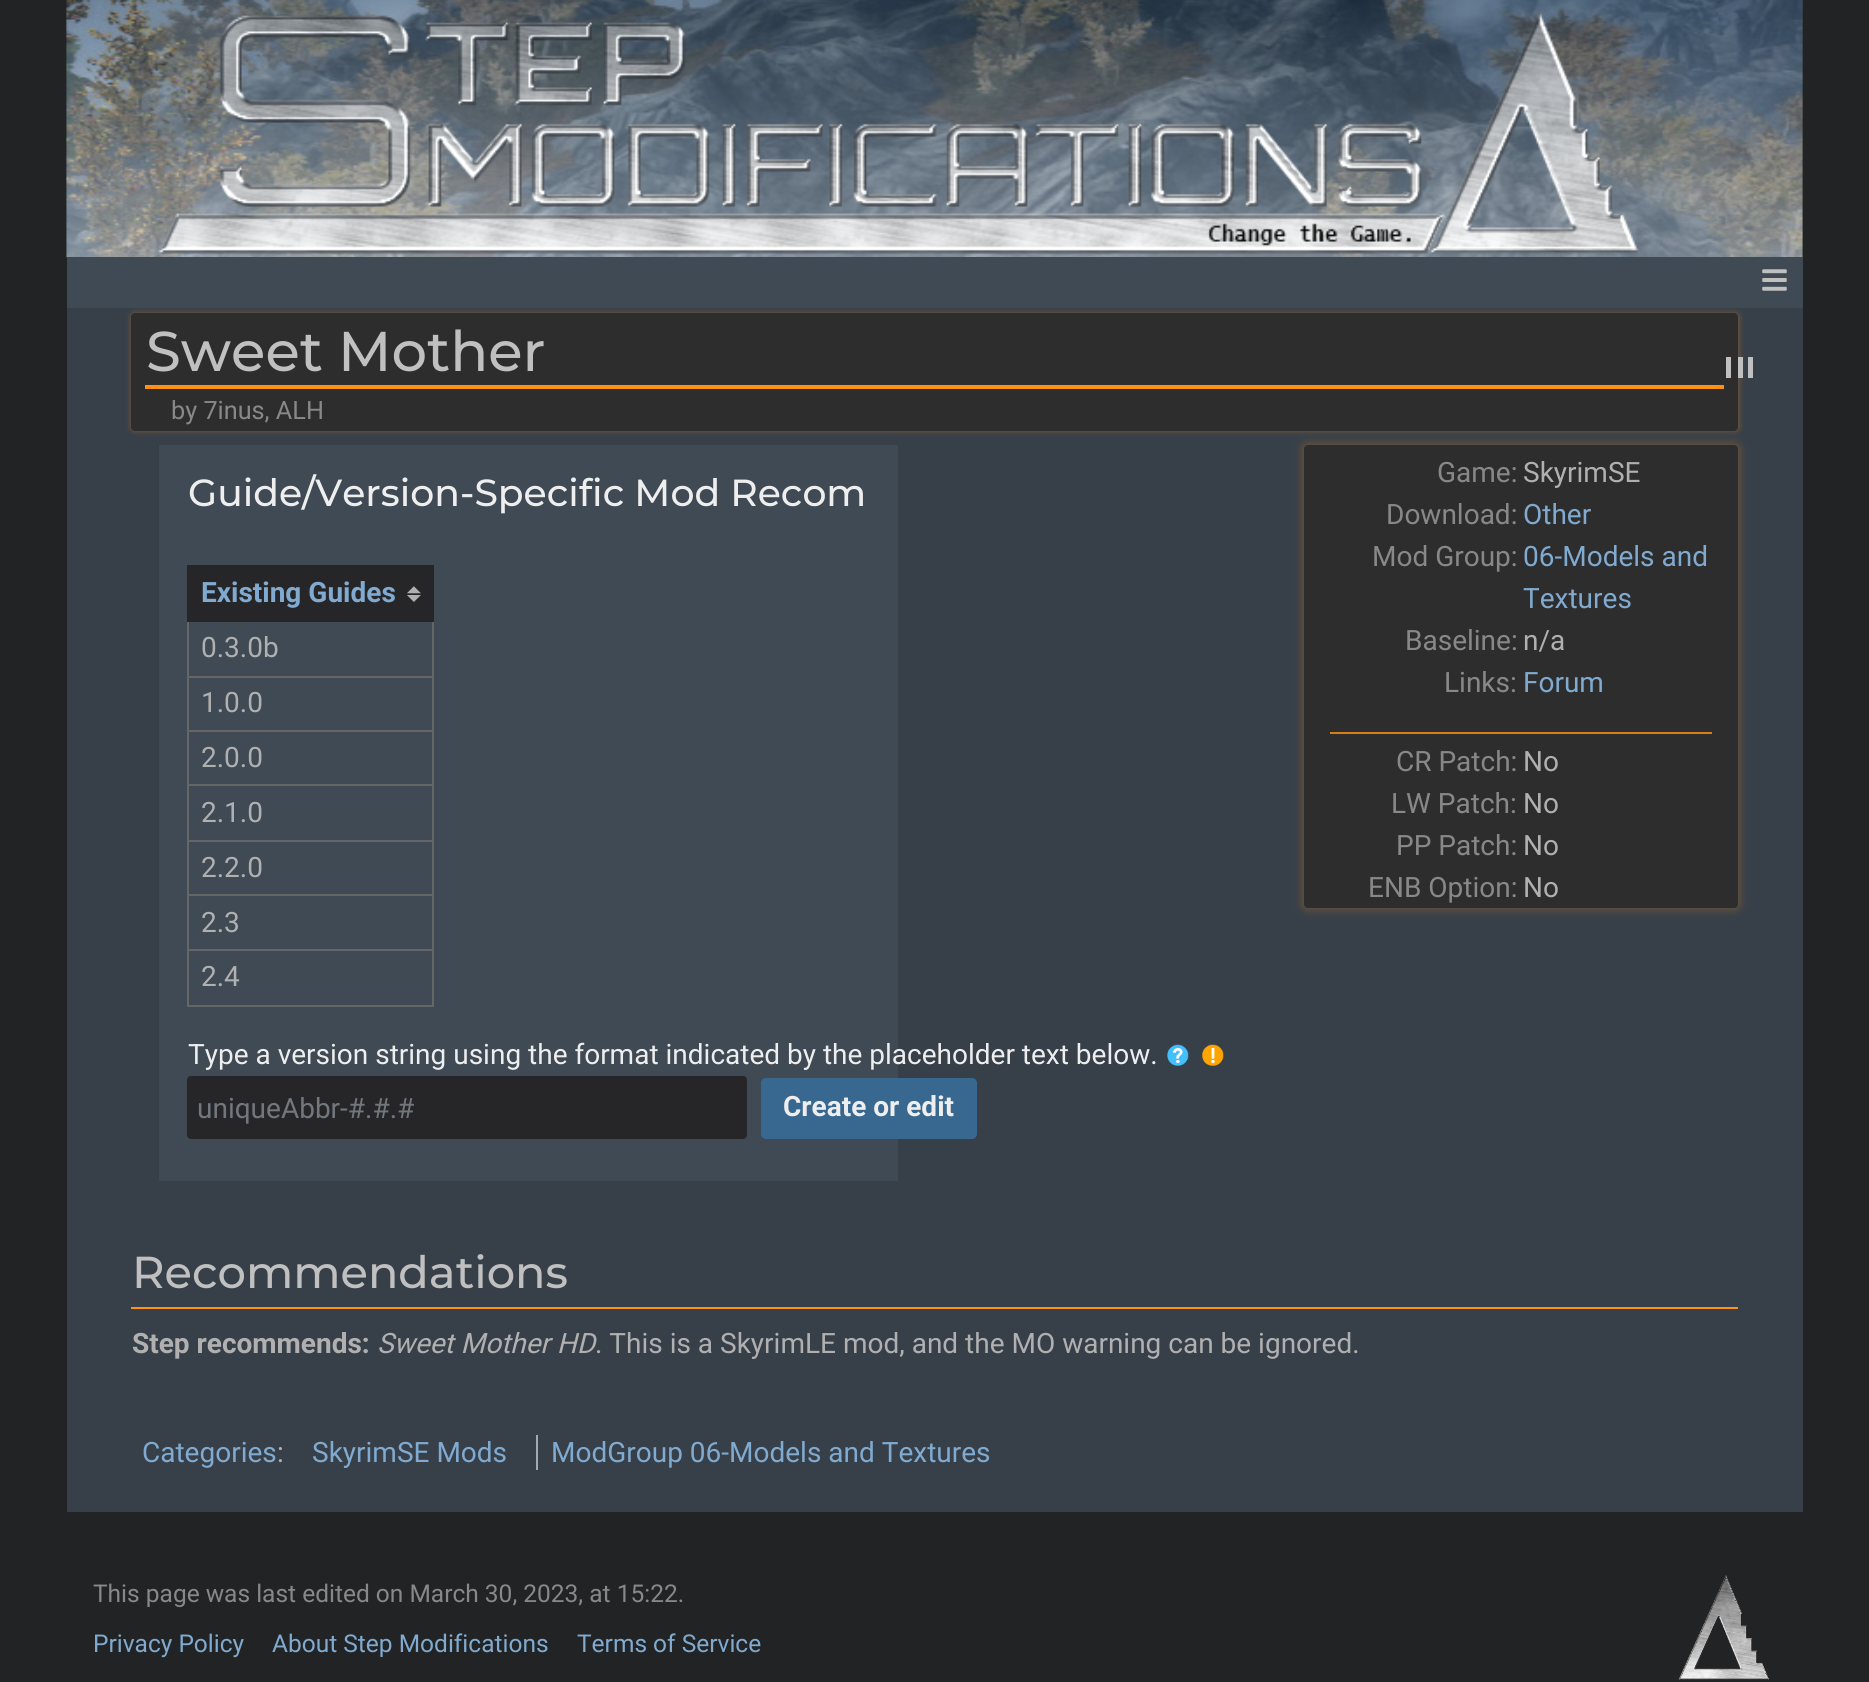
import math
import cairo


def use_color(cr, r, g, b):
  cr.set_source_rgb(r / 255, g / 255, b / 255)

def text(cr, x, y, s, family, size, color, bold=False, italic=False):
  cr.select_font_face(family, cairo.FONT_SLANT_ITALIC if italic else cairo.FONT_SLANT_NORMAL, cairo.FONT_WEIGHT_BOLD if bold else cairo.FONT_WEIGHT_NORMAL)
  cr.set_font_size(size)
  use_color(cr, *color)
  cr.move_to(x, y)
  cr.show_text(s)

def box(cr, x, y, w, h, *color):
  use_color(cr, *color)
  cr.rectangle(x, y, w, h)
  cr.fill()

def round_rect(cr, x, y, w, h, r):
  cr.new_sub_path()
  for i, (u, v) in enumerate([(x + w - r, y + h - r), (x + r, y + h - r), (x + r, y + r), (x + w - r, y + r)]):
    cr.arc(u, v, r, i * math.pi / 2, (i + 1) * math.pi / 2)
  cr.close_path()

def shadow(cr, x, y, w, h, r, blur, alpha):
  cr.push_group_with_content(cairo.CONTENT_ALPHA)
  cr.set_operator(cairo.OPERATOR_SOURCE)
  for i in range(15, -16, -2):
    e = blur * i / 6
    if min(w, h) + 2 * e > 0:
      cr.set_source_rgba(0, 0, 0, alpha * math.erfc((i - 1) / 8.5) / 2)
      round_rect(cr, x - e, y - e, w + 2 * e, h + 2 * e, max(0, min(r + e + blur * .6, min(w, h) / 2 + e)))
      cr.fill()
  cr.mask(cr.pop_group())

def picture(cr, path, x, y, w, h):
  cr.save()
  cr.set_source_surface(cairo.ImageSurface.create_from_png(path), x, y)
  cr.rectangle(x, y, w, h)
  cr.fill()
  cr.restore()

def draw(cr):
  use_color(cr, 34, 35, 36)
  cr.paint()
  picture(cr, "img_01.png", 66, 0, 1737, 258)
  picture(cr, "img_02.png", 159, 12, 1480, 243)
  box(cr, 67, 257, 1736, 51, 63, 74, 84)
  picture(cr, "img_03.png", 1762, 269, 25, 22)
  box(cr, 67, 308, 1736, 1204, 55, 63, 73)
  use_color(cr, 255, 144, 18)
  shadow(cr, 130, 312, 1610, 120, 5, 2.5, 0.25)
  use_color(cr, 45, 45, 46)
  round_rect(cr, 131, 313, 1607, 118, 4)
  cr.fill()
  box(cr, 145, 385, 1579, 4, 255, 144, 18)
  box(cr, 159, 445, 739, 736, 63, 74, 84)
  box(cr, 189, 567, 243, 53, 38, 38, 41)
  picture(cr, "img_04.png", 407, 586, 14, 16)
  box(cr, 187, 565, 247, 2, 38, 38, 41)
  box(cr, 187, 676, 247, 2, 102, 102, 102)
  box(cr, 187, 730, 247, 2, 102, 102, 102)
  box(cr, 187, 784, 247, 2, 102, 102, 102)
  box(cr, 187, 840, 247, 2, 102, 102, 102)
  box(cr, 187, 894, 247, 2, 102, 102, 102)
  box(cr, 187, 949, 247, 2, 102, 102, 102)
  box(cr, 432, 949, 2, 57, 102, 102, 102)
  box(cr, 432, 894, 2, 56, 102, 102, 102)
  box(cr, 432, 840, 2, 56, 102, 102, 102)
  box(cr, 432, 784, 2, 58, 102, 102, 102)
  box(cr, 432, 730, 2, 56, 102, 102, 102)
  box(cr, 432, 620, 2, 112, 102, 102, 102)
  box(cr, 432, 565, 2, 56, 38, 38, 41)
  box(cr, 187, 1005, 247, 2, 102, 102, 102)
  box(cr, 187, 949, 2, 57, 102, 102, 102)
  box(cr, 187, 894, 2, 56, 102, 102, 102)
  box(cr, 187, 840, 2, 56, 102, 102, 102)
  box(cr, 187, 784, 2, 58, 102, 102, 102)
  box(cr, 187, 730, 2, 56, 102, 102, 102)
  box(cr, 187, 620, 2, 112, 102, 102, 102)
  box(cr, 187, 620, 247, 2, 38, 38, 41)
  box(cr, 187, 565, 2, 56, 38, 38, 41)
  picture(cr, "img_05.png", 1167, 1044, 22, 22)
  picture(cr, "img_06.png", 1202, 1044, 22, 22)
  round_rect(cr, 187, 1076, 560, 63, 4)
  cr.fill()
  use_color(cr, 56, 104, 143)
  round_rect(cr, 762, 1079, 214, 59, 4)
  cr.fill_preserve()
  cr.stroke()
  use_color(cr, 255, 144, 18)
  shadow(cr, 1302, 443, 438, 467, 5, 4.5, 0.25)
  use_color(cr, 45, 45, 46)
  round_rect(cr, 1304, 445, 434, 463, 4)
  cr.fill()
  box(cr, 1330, 732, 382, 2, 216, 126, 23)
  box(cr, 131, 1307, 1607, 2, 255, 144, 18)
  box(cr, 1738, 357, 5, 21, 192, 192, 192)
  box(cr, 1726, 357, 5, 21, 192, 192, 192)
  box(cr, 1748, 357, 5, 21, 192, 192, 192)
  box(cr, 536, 1435, 2, 35, 162, 169, 177)
  picture(cr, "img_07.png", 1678, 1575, 91, 105)
  text(cr, 146, 371, "Sweet Mother", "Montserrat Medium", 56, (192, 192, 192))
  text(cr, 171, 419, "by 7inus, ALH", "Roboto", 25.25, (136, 136, 136))
  text(cr, 188, 506, "Guide/Version-Specific Mod Recom", "Montserrat Medium", 37.75, (238, 238, 238))
  text(cr, 201, 602, "Existing Guides", "Roboto", 28, (128, 170, 207), bold=True)
  text(cr, 201, 657, "0.3.0b", "Roboto", 28, (176, 176, 176))
  text(cr, 201, 712, "1.0.0", "Roboto", 28, (176, 176, 176))
  text(cr, 201, 767, "2.0.0", "Roboto", 28, (176, 176, 176))
  text(cr, 201, 822, "2.1.0", "Roboto", 28, (176, 176, 176))
  text(cr, 201, 877, "2.2.0", "Roboto", 28, (176, 176, 176))
  text(cr, 201, 932, "2.3", "Roboto", 28, (176, 176, 176))
  text(cr, 201, 986, "2.4", "Roboto", 28, (176, 176, 176))
  text(cr, 188, 1064, "Type a version string using the format indicated by the placeholder text below.", "Roboto", 28, (238, 238, 238))
  text(cr, 197, 1118, "uniqueAbbr-#.#.#", "Roboto", 28, (114, 119, 125))
  text(cr, 783, 1116, "Create or edit", "Roboto", 28, (238, 238, 238), bold=True)
  text(cr, 1437, 482, "Game:", "Roboto", 28, (136, 136, 136))
  text(cr, 1523, 482, "SkyrimSE", "Roboto", 28, (176, 176, 176))
  text(cr, 1386, 524, "Download:", "Roboto", 28, (136, 136, 136))
  text(cr, 1523, 524, "Other", "Roboto", 28, (128, 170, 207))
  text(cr, 1372, 566, "Mod Group:", "Roboto", 28, (136, 136, 136))
  text(cr, 1523, 566, "06-Models and", "Roboto", 28, (128, 170, 207))
  text(cr, 1523, 608, "Textures", "Roboto", 28, (128, 170, 207))
  text(cr, 1405, 650, "Baseline:", "Roboto", 28, (136, 136, 136))
  text(cr, 1523, 650, "n/a", "Roboto", 28, (176, 176, 176))
  text(cr, 1444, 692, "Links:", "Roboto", 28, (136, 136, 136))
  text(cr, 1523, 692, "Forum", "Roboto", 28, (128, 170, 207))
  text(cr, 1396, 771, "CR Patch:", "Roboto", 28, (136, 136, 136))
  text(cr, 1523, 771, "No", "Roboto", 28, (176, 176, 176))
  text(cr, 1391, 813, "LW Patch:", "Roboto", 28, (136, 136, 136))
  text(cr, 1523, 813, "No", "Roboto", 28, (176, 176, 176))
  text(cr, 1396, 855, "PP Patch:", "Roboto", 28, (136, 136, 136))
  text(cr, 1523, 855, "No", "Roboto", 28, (176, 176, 176))
  text(cr, 1368, 897, "ENB Option:", "Roboto", 28, (136, 136, 136))
  text(cr, 1523, 897, "No", "Roboto", 28, (176, 176, 176))
  text(cr, 132, 1288, "Recommendations", "Montserrat Medium", 44.75, (192, 192, 192))
  text(cr, 132, 1353, "Step recommends:", "Roboto", 28, (176, 176, 176), bold=True)
  text(cr, 377, 1353, "Sweet Mother HD", "Roboto", 28, (176, 176, 176), italic=True)
  text(cr, 595, 1353, ". This is a SkyrimLE mod, and the MO warning can be ignored.", "Roboto", 28, (176, 176, 176))
  text(cr, 142, 1462, "Categories", "Roboto", 28, (128, 170, 207))
  text(cr, 277, 1462, ":", "Roboto", 28, (176, 176, 176))
  text(cr, 312, 1462, "SkyrimSE Mods", "Roboto", 28, (128, 170, 207))
  text(cr, 551, 1462, "ModGroup 06-Models and Textures", "Roboto", 28, (128, 170, 207))
  text(cr, 93, 1602, "This page was last edited on March 30, 2023, at 15:22.", "Roboto", 24.5, (136, 136, 136))
  text(cr, 93, 1652, "Privacy Policy", "Roboto", 24.5, (128, 170, 207))
  text(cr, 272, 1652, "About Step Modifications", "Roboto", 24.5, (128, 170, 207))
  text(cr, 577, 1652, "Terms of Service", "Roboto", 24.5, (128, 170, 207))


surface = cairo.ImageSurface(cairo.FORMAT_RGB24, 1869, 1682)
cr = cairo.Context(surface)
options = cairo.FontOptions()
options.set_hint_metrics(cairo.HINT_METRICS_OFF)
options.set_hint_style(cairo.HINT_STYLE_NONE)
cr.set_font_options(options)
cr.set_miter_limit(4)
draw(cr)
surface.write_to_png("out.png")
